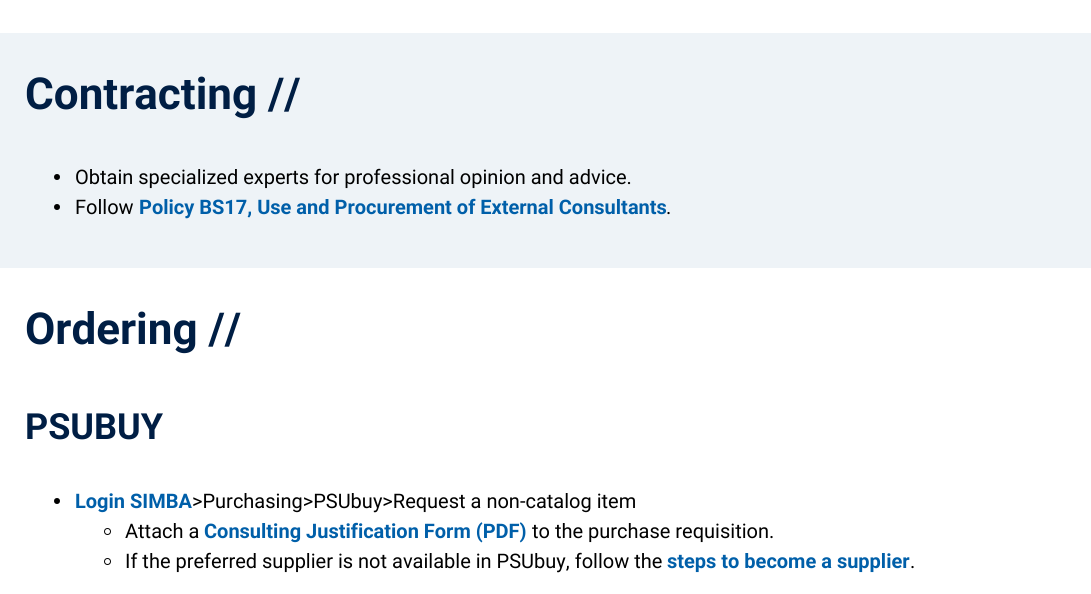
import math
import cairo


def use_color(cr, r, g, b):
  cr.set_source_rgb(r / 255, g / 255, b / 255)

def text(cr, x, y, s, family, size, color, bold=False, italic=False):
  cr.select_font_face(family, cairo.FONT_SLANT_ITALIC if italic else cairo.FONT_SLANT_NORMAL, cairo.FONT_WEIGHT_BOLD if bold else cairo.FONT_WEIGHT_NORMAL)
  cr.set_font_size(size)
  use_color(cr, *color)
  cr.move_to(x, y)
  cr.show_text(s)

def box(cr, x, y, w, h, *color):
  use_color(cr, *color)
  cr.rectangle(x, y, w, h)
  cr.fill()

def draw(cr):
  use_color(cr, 255, 255, 255)
  cr.paint()
  box(cr, 0, 33, 1091, 235, 238, 243, 247)
  use_color(cr, 0, 0, 0)
  cr.arc(57, 177, 3, 0, 2 * math.pi)
  cr.fill()
  cr.arc(57, 207, 3, 0, 2 * math.pi)
  cr.fill()
  cr.arc(57, 501, 3, 0, 2 * math.pi)
  cr.fill()
  cr.arc(107.5, 531.5, 3, 0, 2 * math.pi)
  cr.set_line_width(1)
  cr.stroke()
  cr.arc(107.5, 561.5, 3, 0, 2 * math.pi)
  cr.stroke()
  text(cr, 25, 109, "Contracting //", "Roboto", 44, (0, 30, 68), bold=True)
  text(cr, 75, 184, "Obtain specialized experts for professional opinion and advice.", "Roboto", 20, (0, 0, 0))
  text(cr, 75, 214, "Follow", "Roboto", 20, (0, 0, 0))
  text(cr, 139, 214, "Policy BS17, Use and Procurement of External Consultants", "Roboto", 20, (0, 95, 169), bold=True)
  text(cr, 666, 214, ".", "Roboto", 20, (0, 0, 0))
  text(cr, 25, 344, "Ordering //", "Roboto", 44, (0, 30, 68), bold=True)
  text(cr, 25, 439, "PSUBUY", "Roboto", 36, (0, 30, 68), bold=True)
  text(cr, 75, 508, "Login SIMBA", "Roboto", 20, (0, 95, 169), bold=True)
  text(cr, 192, 508, ">Purchasing>PSUbuy>Request a non-catalog item", "Roboto", 20, (0, 0, 0))
  text(cr, 125, 538, "Attach a", "Roboto", 20, (0, 0, 0))
  text(cr, 204, 538, "Consulting Justification Form (PDF)", "Roboto", 20, (0, 95, 169), bold=True)
  text(cr, 532, 538, "to the purchase requisition.", "Roboto", 20, (0, 0, 0))
  text(cr, 125, 568, "If the preferred supplier is not available in PSUbuy, follow the", "Roboto", 20, (0, 0, 0))
  text(cr, 667, 568, "steps to become a supplier", "Roboto", 20, (0, 95, 169), bold=True)
  text(cr, 910, 568, ".", "Roboto", 20, (0, 0, 0))


surface = cairo.ImageSurface(cairo.FORMAT_RGB24, 1091, 594)
cr = cairo.Context(surface)
options = cairo.FontOptions()
options.set_hint_metrics(cairo.HINT_METRICS_OFF)
options.set_hint_style(cairo.HINT_STYLE_NONE)
cr.set_font_options(options)
cr.set_miter_limit(4)
draw(cr)
surface.write_to_png("out.png")
